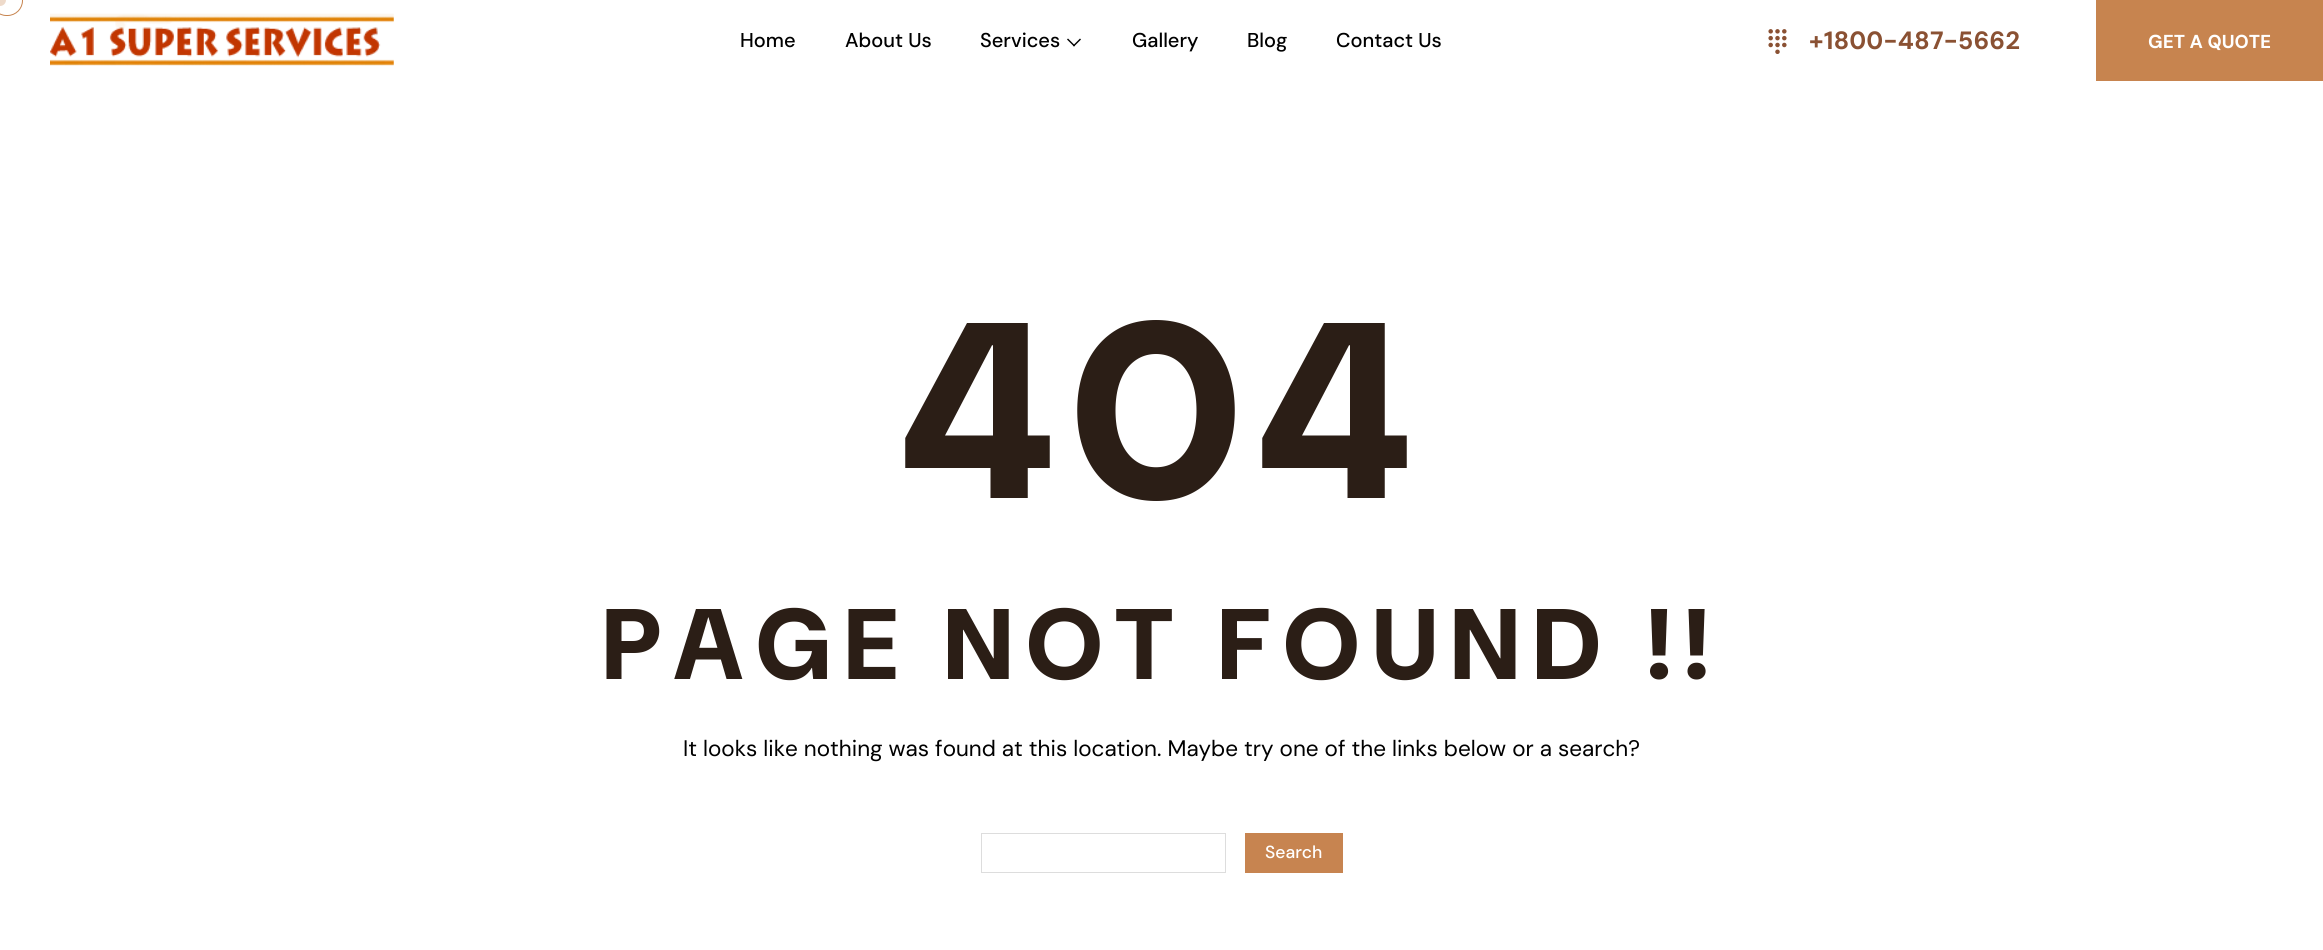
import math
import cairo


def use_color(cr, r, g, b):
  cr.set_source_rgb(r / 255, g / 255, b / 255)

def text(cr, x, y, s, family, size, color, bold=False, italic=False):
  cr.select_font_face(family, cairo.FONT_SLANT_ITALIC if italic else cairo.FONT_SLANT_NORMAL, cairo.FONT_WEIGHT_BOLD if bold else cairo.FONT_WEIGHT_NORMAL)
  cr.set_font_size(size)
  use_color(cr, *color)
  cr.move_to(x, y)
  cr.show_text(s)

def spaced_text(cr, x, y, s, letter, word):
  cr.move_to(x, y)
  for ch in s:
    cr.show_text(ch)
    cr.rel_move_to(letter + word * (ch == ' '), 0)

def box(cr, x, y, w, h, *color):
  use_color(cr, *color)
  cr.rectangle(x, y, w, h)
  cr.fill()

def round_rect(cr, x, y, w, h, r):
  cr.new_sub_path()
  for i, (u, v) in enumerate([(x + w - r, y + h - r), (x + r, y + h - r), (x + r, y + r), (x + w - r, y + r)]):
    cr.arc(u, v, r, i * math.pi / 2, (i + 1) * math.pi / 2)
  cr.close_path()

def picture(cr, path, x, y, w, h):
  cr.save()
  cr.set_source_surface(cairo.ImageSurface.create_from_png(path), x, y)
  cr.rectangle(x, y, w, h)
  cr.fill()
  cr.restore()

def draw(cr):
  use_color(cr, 255, 255, 255)
  cr.paint()
  round_rect(cr, -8.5, -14.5, 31, 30, 15)
  use_color(cr, 199, 132, 79)
  cr.set_line_width(1)
  cr.stroke()
  use_color(cr, 238, 218, 202)
  cr.arc(0, 0, 6, 0, 2 * math.pi)
  cr.fill()
  picture(cr, "img_01.png", 50, 13, 344, 53)
  use_color(cr, 0, 0, 0)
  cr.new_path()
  cr.move_to(1073, 45.5)
  cr.line_to(1080, 38.5)
  cr.line_to(1081, 39.5)
  cr.line_to(1074, 46.5)
  cr.close_path()
  cr.fill()
  cr.new_path()
  cr.move_to(1067, 39.5)
  cr.line_to(1068, 38.5)
  cr.line_to(1075, 45.5)
  cr.line_to(1074, 46.5)
  cr.close_path()
  cr.fill()
  picture(cr, "img_02.png", 1768, 29, 19, 25)
  box(cr, 2096, 0, 227, 81, 199, 132, 79)
  cr.rectangle(981.5, 833.5, 244, 39)
  use_color(cr, 221, 221, 221)
  cr.stroke()
  box(cr, 1245, 833, 98, 40, 199, 132, 80)
  text(cr, 740, 47, "Home", "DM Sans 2 Medium", 20, (0, 0, 0))
  text(cr, 845, 47, "About Us", "DM Sans 2 Medium", 20, (0, 0, 0))
  text(cr, 980, 47, "Services", "DM Sans 2 Medium", 20, (0, 0, 0))
  text(cr, 1132, 47, "Gallery", "DM Sans 2 Medium", 20, (0, 0, 0))
  text(cr, 1247, 47, "Blog", "DM Sans 2 Medium", 20, (0, 0, 0))
  text(cr, 1336, 47, "Contact Us", "DM Sans 2 Medium", 20, (0, 0, 0))
  text(cr, 1809, 49, "+1800-487-5662", "DM Sans", 25, (138, 81, 51), bold=True)
  text(cr, 2148, 48, "GET A QUOTE", "DM Sans", 18.75, (255, 255, 255), bold=True)
  cr.select_font_face("DM Sans Black")
  cr.set_font_size(250)
  use_color(cr, 43, 30, 22)
  spaced_text(cr, 899, 498, "404", 12.5, 0)
  cr.set_font_size(100)
  spaced_text(cr, 602, 679, "PAGE NOT FOUND !!", 12.5, 0)
  text(cr, 683, 756, "It looks like nothing was found at this location. Maybe try one of the links below or a search?", "DM Sans", 22.5, (0, 0, 0))
  text(cr, 1265, 858, "Search", "DM Sans Medium", 17.5, (255, 255, 255))


surface = cairo.ImageSurface(cairo.FORMAT_RGB24, 2323, 950)
cr = cairo.Context(surface)
options = cairo.FontOptions()
options.set_hint_metrics(cairo.HINT_METRICS_OFF)
options.set_hint_style(cairo.HINT_STYLE_NONE)
cr.set_font_options(options)
cr.set_miter_limit(4)
draw(cr)
surface.write_to_png("out.png")
